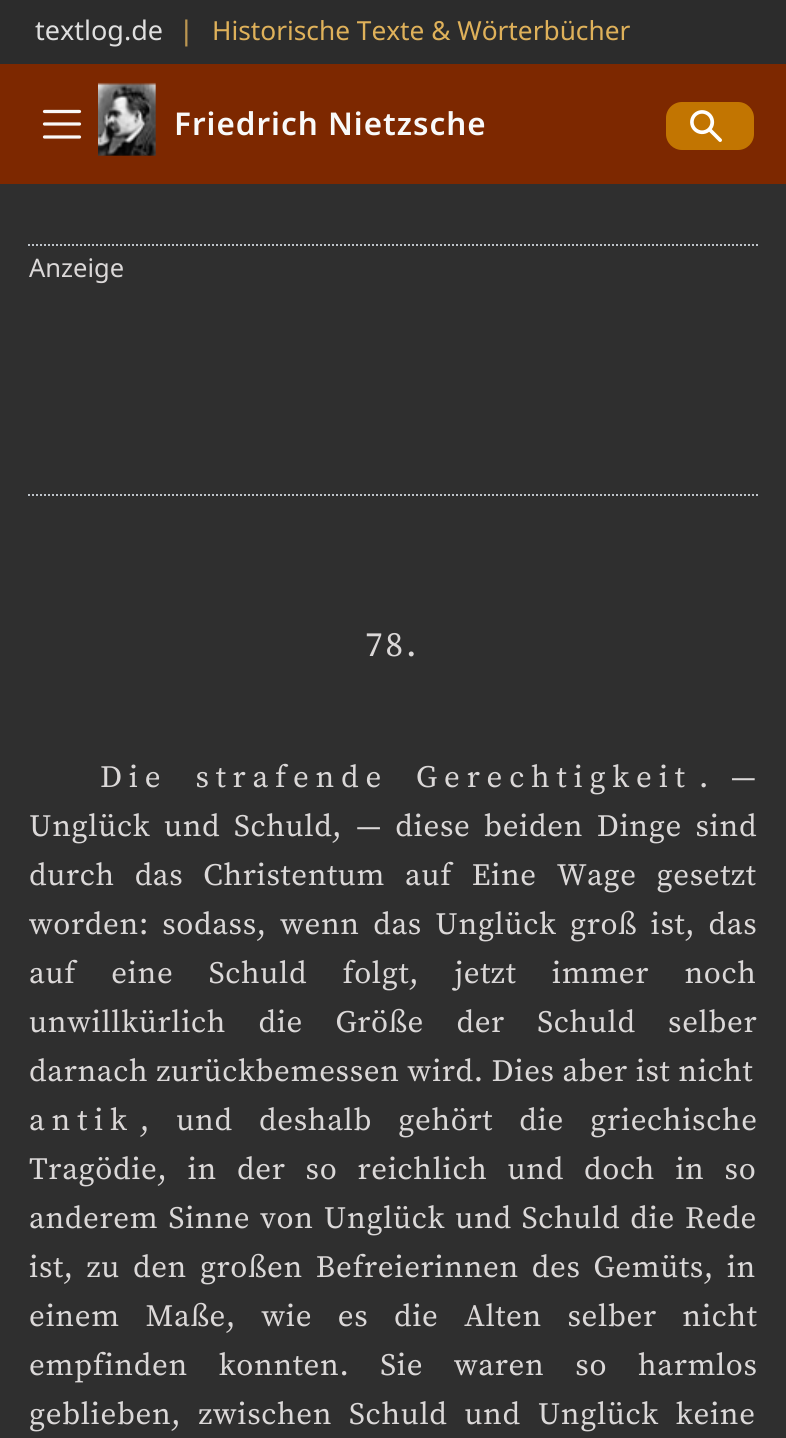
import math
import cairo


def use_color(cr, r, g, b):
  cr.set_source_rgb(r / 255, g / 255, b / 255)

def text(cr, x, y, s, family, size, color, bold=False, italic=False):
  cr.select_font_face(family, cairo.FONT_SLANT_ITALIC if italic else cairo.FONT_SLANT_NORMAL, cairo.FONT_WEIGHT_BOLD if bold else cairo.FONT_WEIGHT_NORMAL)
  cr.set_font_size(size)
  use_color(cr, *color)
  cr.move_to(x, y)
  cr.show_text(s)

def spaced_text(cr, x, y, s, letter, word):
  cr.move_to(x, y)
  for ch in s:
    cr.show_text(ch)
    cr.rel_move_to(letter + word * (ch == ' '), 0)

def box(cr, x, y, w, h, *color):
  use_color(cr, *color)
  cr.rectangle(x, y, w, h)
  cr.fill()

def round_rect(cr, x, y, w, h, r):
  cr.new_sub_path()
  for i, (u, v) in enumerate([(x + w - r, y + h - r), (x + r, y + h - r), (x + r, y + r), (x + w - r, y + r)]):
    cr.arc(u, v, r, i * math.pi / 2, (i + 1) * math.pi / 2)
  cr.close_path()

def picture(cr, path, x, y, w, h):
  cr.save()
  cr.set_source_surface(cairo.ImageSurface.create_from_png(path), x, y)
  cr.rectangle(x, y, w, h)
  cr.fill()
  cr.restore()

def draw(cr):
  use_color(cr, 47, 47, 47)
  cr.paint()
  box(cr, 0, 0, 786, 64, 44, 44, 44)
  box(cr, 0, 64, 786, 120, 125, 40, 0)
  cr.new_path()
  cr.move_to(44.5, 111.5)
  cr.line_to(79.5, 111.5)
  cr.move_to(44.5, 124)
  cr.line_to(79.5, 124)
  cr.move_to(44.5, 137)
  cr.line_to(79.5, 137)
  use_color(cr, 249, 249, 249)
  cr.set_line_width(3.2)
  cr.set_line_cap(cairo.LINE_CAP_ROUND)
  cr.stroke()
  picture(cr, "img_01.png", 98, 82, 58, 74)
  use_color(cr, 194, 117, 1)
  round_rect(cr, 666, 102, 88, 48, 16)
  cr.fill()
  picture(cr, "img_02.png", 690, 110, 32, 32)
  cr.new_path()
  cr.move_to(28, 245)
  cr.line_to(758, 245)
  use_color(cr, 190, 195, 201)
  cr.set_line_width(2)
  cr.set_line_cap(cairo.LINE_CAP_BUTT)
  cr.set_dash([2, 2])
  cr.stroke()
  cr.new_path()
  cr.move_to(28, 495)
  cr.line_to(758, 495)
  cr.stroke()
  text(cr, 35, 40, "textlog.de", "Noto Sans", 27, (223, 223, 223))
  text(cr, 175, 40, "❘", "DejaVu Sans", 27, (187, 150, 81))
  text(cr, 212, 40, "Historische Texte & Wörterbücher", "Noto Sans", 26.25, (223, 177, 90))
  cr.select_font_face("Noto Sans SemiBold")
  cr.set_font_size(31.4)
  use_color(cr, 249, 249, 249)
  spaced_text(cr, 174, 135, "Friedrich Nietzsche", 1, 0)
  text(cr, 29, 277, "Anzeige", "Noto Sans", 25.5, (219, 216, 216))
  cr.select_font_face("Source Serif Pro")
  cr.set_font_size(35)
  spaced_text(cr, 365, 656, "78.", 3, 0)
  cr.set_font_size(31)
  spaced_text(cr, 100, 787, "Die strafende Gerechtigkeit", 6.8, 14)
  spaced_text(cr, 699, 787, ". —", 0.65, 14)
  spaced_text(cr, 29, 836, "Unglück und Schuld, — diese beiden Dinge sind", 0.65, 5.75)
  spaced_text(cr, 29, 885, "durch das Christentum auf Eine Wage gesetzt", 0.65, 12)
  spaced_text(cr, 29, 934, "worden: sodass, wenn das Unglück groß ist, das", 0.65, 5.5)
  spaced_text(cr, 29, 983, "auf eine Schuld folgt, jetzt immer noch", 0.65, 27.5)
  spaced_text(cr, 29, 1032, "unwillkürlich die Größe der Schuld selber", 0.65, 24.5)
  spaced_text(cr, 29, 1081, "darnach zurückbemessen wird. Dies aber ist nicht", 0.65, 0)
  spaced_text(cr, 29, 1130, "antik", 6.8, 0)
  spaced_text(cr, 140, 1130, ", und deshalb gehört die griechische", 0.65, 18.5)
  spaced_text(cr, 29, 1179, "Tragödie, in der so reichlich und doch in so", 0.65, 12.25)
  spaced_text(cr, 29, 1228, "anderem Sinne von Unglück und Schuld die Rede", 0.65, 2.25)
  spaced_text(cr, 29, 1277, "ist, zu den großen Befreierinnen des Gemüts, in", 0.65, 5)
  spaced_text(cr, 29, 1326, "einem Maße, wie es die Alten selber nicht", 0.65, 17.75)
  spaced_text(cr, 29, 1375, "empfinden konnten. Sie waren so harmlos", 0.65, 23)
  spaced_text(cr, 29, 1424, "geblieben, zwischen Schuld und Unglück keine", 0.65, 9)


surface = cairo.ImageSurface(cairo.FORMAT_RGB24, 786, 1438)
cr = cairo.Context(surface)
options = cairo.FontOptions()
options.set_hint_metrics(cairo.HINT_METRICS_OFF)
options.set_hint_style(cairo.HINT_STYLE_NONE)
cr.set_font_options(options)
cr.set_miter_limit(4)
draw(cr)
surface.write_to_png("out.png")
